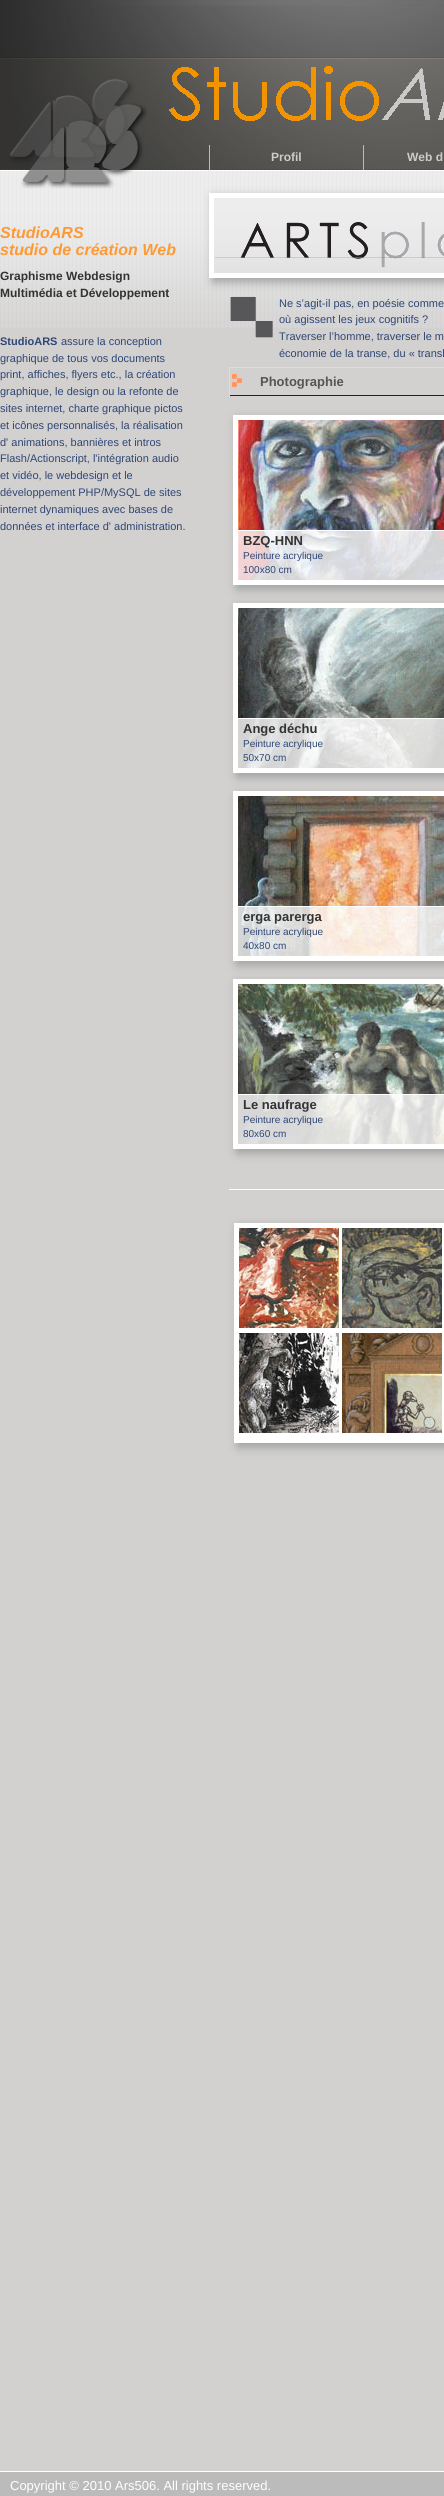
import math
import cairo


def use_color(cr, r, g, b):
  cr.set_source_rgb(r / 255, g / 255, b / 255)

def text(cr, x, y, s, family, size, color, bold=False, italic=False):
  cr.select_font_face(family, cairo.FONT_SLANT_ITALIC if italic else cairo.FONT_SLANT_NORMAL, cairo.FONT_WEIGHT_BOLD if bold else cairo.FONT_WEIGHT_NORMAL)
  cr.set_font_size(size)
  use_color(cr, *color)
  cr.move_to(x, y)
  cr.show_text(s)

def box(cr, x, y, w, h, *color):
  use_color(cr, *color)
  cr.rectangle(x, y, w, h)
  cr.fill()

def round_rect(cr, x, y, w, h, r):
  cr.new_sub_path()
  for i, (u, v) in enumerate([(x + w - r, y + h - r), (x + r, y + h - r), (x + r, y + r), (x + w - r, y + r)]):
    cr.arc(u, v, r, i * math.pi / 2, (i + 1) * math.pi / 2)
  cr.close_path()

def shadow(cr, x, y, w, h, r, blur, alpha):
  cr.push_group_with_content(cairo.CONTENT_ALPHA)
  cr.set_operator(cairo.OPERATOR_SOURCE)
  for i in range(15, -16, -2):
    e = blur * i / 6
    if min(w, h) + 2 * e > 0:
      cr.set_source_rgba(0, 0, 0, alpha * math.erfc((i - 1) / 8.5) / 2)
      round_rect(cr, x - e, y - e, w + 2 * e, h + 2 * e, max(0, min(r + e + blur * .6, min(w, h) / 2 + e)))
      cr.fill()
  cr.mask(cr.pop_group())

def picture(cr, path, x, y, w, h):
  cr.save()
  cr.set_source_surface(cairo.ImageSurface.create_from_png(path), x, y)
  cr.rectangle(x, y, w, h)
  cr.fill()
  cr.restore()

def draw(cr):
  use_color(cr, 210, 209, 208)
  cr.paint()
  picture(cr, "img_01.png", 0, 171, 444, 157)
  picture(cr, "img_02.png", 0, 0, 444, 171)
  picture(cr, "img_03.png", 21, 103, 126, 86)
  box(cr, 209, 145, 1, 25, 187, 187, 187)
  box(cr, 363, 145, 1, 25, 187, 187, 187)
  use_color(cr, 158, 158, 158)
  shadow(cr, 213, 197, 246, 85, 0, 5, 1)
  picture(cr, "img_04.png", 214, 198, 230, 75)
  cr.rectangle(211.5, 195.5, 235, 80)
  use_color(cr, 255, 255, 255)
  cr.set_line_width(5)
  cr.stroke()
  picture(cr, "img_05.png", 214, 222, 230, 46)
  picture(cr, "img_06.png", 230, 296, 43, 42)
  picture(cr, "img_07.png", 232, 374, 10, 13)
  box(cr, 229, 367, 215, 1, 221, 221, 221)
  box(cr, 229, 395, 215, 1, 34, 34, 34)
  box(cr, 229, 367, 1, 29, 221, 221, 221)
  use_color(cr, 158, 158, 158)
  shadow(cr, 237, 419, 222, 170, 0, 5, 1)
  cr.rectangle(235.5, 417.5, 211, 165)
  use_color(cr, 255, 255, 255)
  cr.stroke()
  picture(cr, "img_08.png", 238, 420, 206, 160)
  cr.set_source_rgba(1, 1, 1, 0.79)
  cr.rectangle(238, 531, 206, 49)
  cr.fill()
  box(cr, 238, 530, 206, 1, 255, 255, 255)
  use_color(cr, 158, 158, 158)
  shadow(cr, 237, 607, 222, 170, 0, 5, 1)
  cr.rectangle(235.5, 605.5, 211, 165)
  use_color(cr, 255, 255, 255)
  cr.stroke()
  picture(cr, "img_09.png", 238, 608, 206, 160)
  cr.set_source_rgba(1, 1, 1, 0.79)
  cr.rectangle(238, 719, 206, 49)
  cr.fill()
  box(cr, 238, 718, 206, 1, 255, 255, 255)
  use_color(cr, 158, 158, 158)
  shadow(cr, 237, 795, 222, 170, 0, 5, 1)
  cr.rectangle(235.5, 793.5, 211, 165)
  use_color(cr, 255, 255, 255)
  cr.stroke()
  picture(cr, "img_10.png", 238, 796, 206, 160)
  cr.set_source_rgba(1, 1, 1, 0.79)
  cr.rectangle(238, 907, 206, 49)
  cr.fill()
  box(cr, 238, 906, 206, 1, 255, 255, 255)
  use_color(cr, 158, 158, 158)
  shadow(cr, 237, 983, 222, 170, 0, 5, 1)
  cr.rectangle(235.5, 981.5, 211, 165)
  use_color(cr, 255, 255, 255)
  cr.stroke()
  picture(cr, "img_11.png", 238, 984, 206, 160)
  cr.set_source_rgba(1, 1, 1, 0.79)
  cr.rectangle(238, 1095, 206, 49)
  cr.fill()
  box(cr, 238, 1094, 206, 1, 255, 255, 255)
  box(cr, 229, 1189, 215, 1, 255, 255, 255)
  use_color(cr, 158, 158, 158)
  shadow(cr, 238, 1227, 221, 220, 0, 5, 1)
  box(cr, 234, 1223, 210, 220, 255, 255, 255)
  picture(cr, "img_12.png", 239, 1228, 100, 100)
  picture(cr, "img_13.png", 342, 1228, 100, 100)
  picture(cr, "img_14.png", 239, 1333, 100, 100)
  picture(cr, "img_15.png", 342, 1333, 100, 100)
  box(cr, 0, 2472, 444, 24, 187, 187, 187)
  box(cr, 0, 2471, 444, 1, 255, 255, 255)
  text(cr, 271, 161, "Profil", "Liberation Sans", 12, (204, 204, 204), bold=True)
  text(cr, 407, 161, "Web d", "Liberation Sans", 12, (204, 204, 204), bold=True)
  text(cr, 0, 238, "StudioARS", "Liberation Sans", 16, (255, 153, 51), bold=True, italic=True)
  text(cr, 0, 255, "studio de création Web", "Liberation Sans", 16, (255, 153, 51), bold=True, italic=True)
  text(cr, 0, 280, "Graphisme Webdesign", "Liberation Sans", 12, (51, 51, 51), bold=True)
  text(cr, 0, 297, "Multimédia et Développement", "Liberation Sans", 12, (51, 51, 51), bold=True)
  text(cr, 0, 345, "StudioARS", "Liberation Sans", 11, (47, 70, 117), bold=True)
  text(cr, 61, 345, "assure la conception", "Liberation Sans", 11, (47, 70, 117))
  text(cr, 0, 362, "graphique de tous vos documents", "Liberation Sans", 11, (47, 70, 117))
  text(cr, 0, 378, "print, affiches, flyers etc., la création", "Liberation Sans", 11, (47, 70, 117))
  text(cr, 0, 395, "graphique, le design ou la refonte de", "Liberation Sans", 11, (47, 70, 117))
  text(cr, 0, 412, "sites internet, charte graphique pictos", "Liberation Sans", 11, (47, 70, 117))
  text(cr, 0, 429, "et icônes personnalisés, la réalisation", "Liberation Sans", 11, (47, 70, 117))
  text(cr, 0, 446, "d' animations, bannières et intros", "Liberation Sans", 11, (47, 70, 117))
  text(cr, 0, 462, "Flash/Actionscript, l'intégration audio", "Liberation Sans", 11, (47, 70, 117))
  text(cr, 0, 479, "et vidéo, le webdesign et le", "Liberation Sans", 11, (47, 70, 117))
  text(cr, 0, 496, "développement PHP/MySQL de sites", "Liberation Sans", 11, (47, 70, 117))
  text(cr, 0, 513, "internet dynamiques avec bases de", "Liberation Sans", 11, (47, 70, 117))
  text(cr, 0, 530, "données et interface d' administration.", "Liberation Sans", 11, (47, 70, 117))
  text(cr, 279, 307, "Ne s’agit-il pas, en poésie comme", "Liberation Sans", 11, (47, 70, 117))
  text(cr, 279, 323, "où agissent les jeux cognitifs ?", "Liberation Sans", 11, (47, 70, 117))
  text(cr, 279, 340, "Traverser l’homme, traverser le m", "Liberation Sans", 11, (47, 70, 117))
  text(cr, 279, 357, "économie de la transe, du « transh", "Liberation Sans", 11, (47, 70, 117))
  text(cr, 260, 386, "Photographie", "Liberation Sans", 13, (85, 85, 85), bold=True)
  text(cr, 243, 545, "BZQ-HNN", "Liberation Sans", 13, (51, 51, 51), bold=True)
  text(cr, 243, 559, "Peinture acrylique", "Liberation Sans", 10, (47, 70, 117))
  text(cr, 243, 573, "100x80 cm", "Liberation Sans", 10, (47, 70, 117))
  text(cr, 243, 733, "Ange déchu", "Liberation Sans", 13, (51, 51, 51), bold=True)
  text(cr, 243, 747, "Peinture acrylique", "Liberation Sans", 10, (47, 70, 117))
  text(cr, 243, 761, "50x70 cm", "Liberation Sans", 10, (47, 70, 117))
  text(cr, 243, 921, "erga parerga", "Liberation Sans", 13, (51, 51, 51), bold=True)
  text(cr, 243, 935, "Peinture acrylique", "Liberation Sans", 10, (47, 70, 117))
  text(cr, 243, 949, "40x80 cm", "Liberation Sans", 10, (47, 70, 117))
  text(cr, 243, 1109, "Le naufrage", "Liberation Sans", 13, (51, 51, 51), bold=True)
  text(cr, 243, 1123, "Peinture acrylique", "Liberation Sans", 10, (47, 70, 117))
  text(cr, 243, 1137, "80x60 cm", "Liberation Sans", 10, (47, 70, 117))
  text(cr, 10, 2490, "Copyright © 2010 Ars506. All rights reserved.", "Liberation Sans", 13, (255, 255, 255))


surface = cairo.ImageSurface(cairo.FORMAT_RGB24, 444, 2496)
cr = cairo.Context(surface)
options = cairo.FontOptions()
options.set_hint_metrics(cairo.HINT_METRICS_OFF)
options.set_hint_style(cairo.HINT_STYLE_NONE)
cr.set_font_options(options)
cr.set_miter_limit(4)
draw(cr)
surface.write_to_png("out.png")
